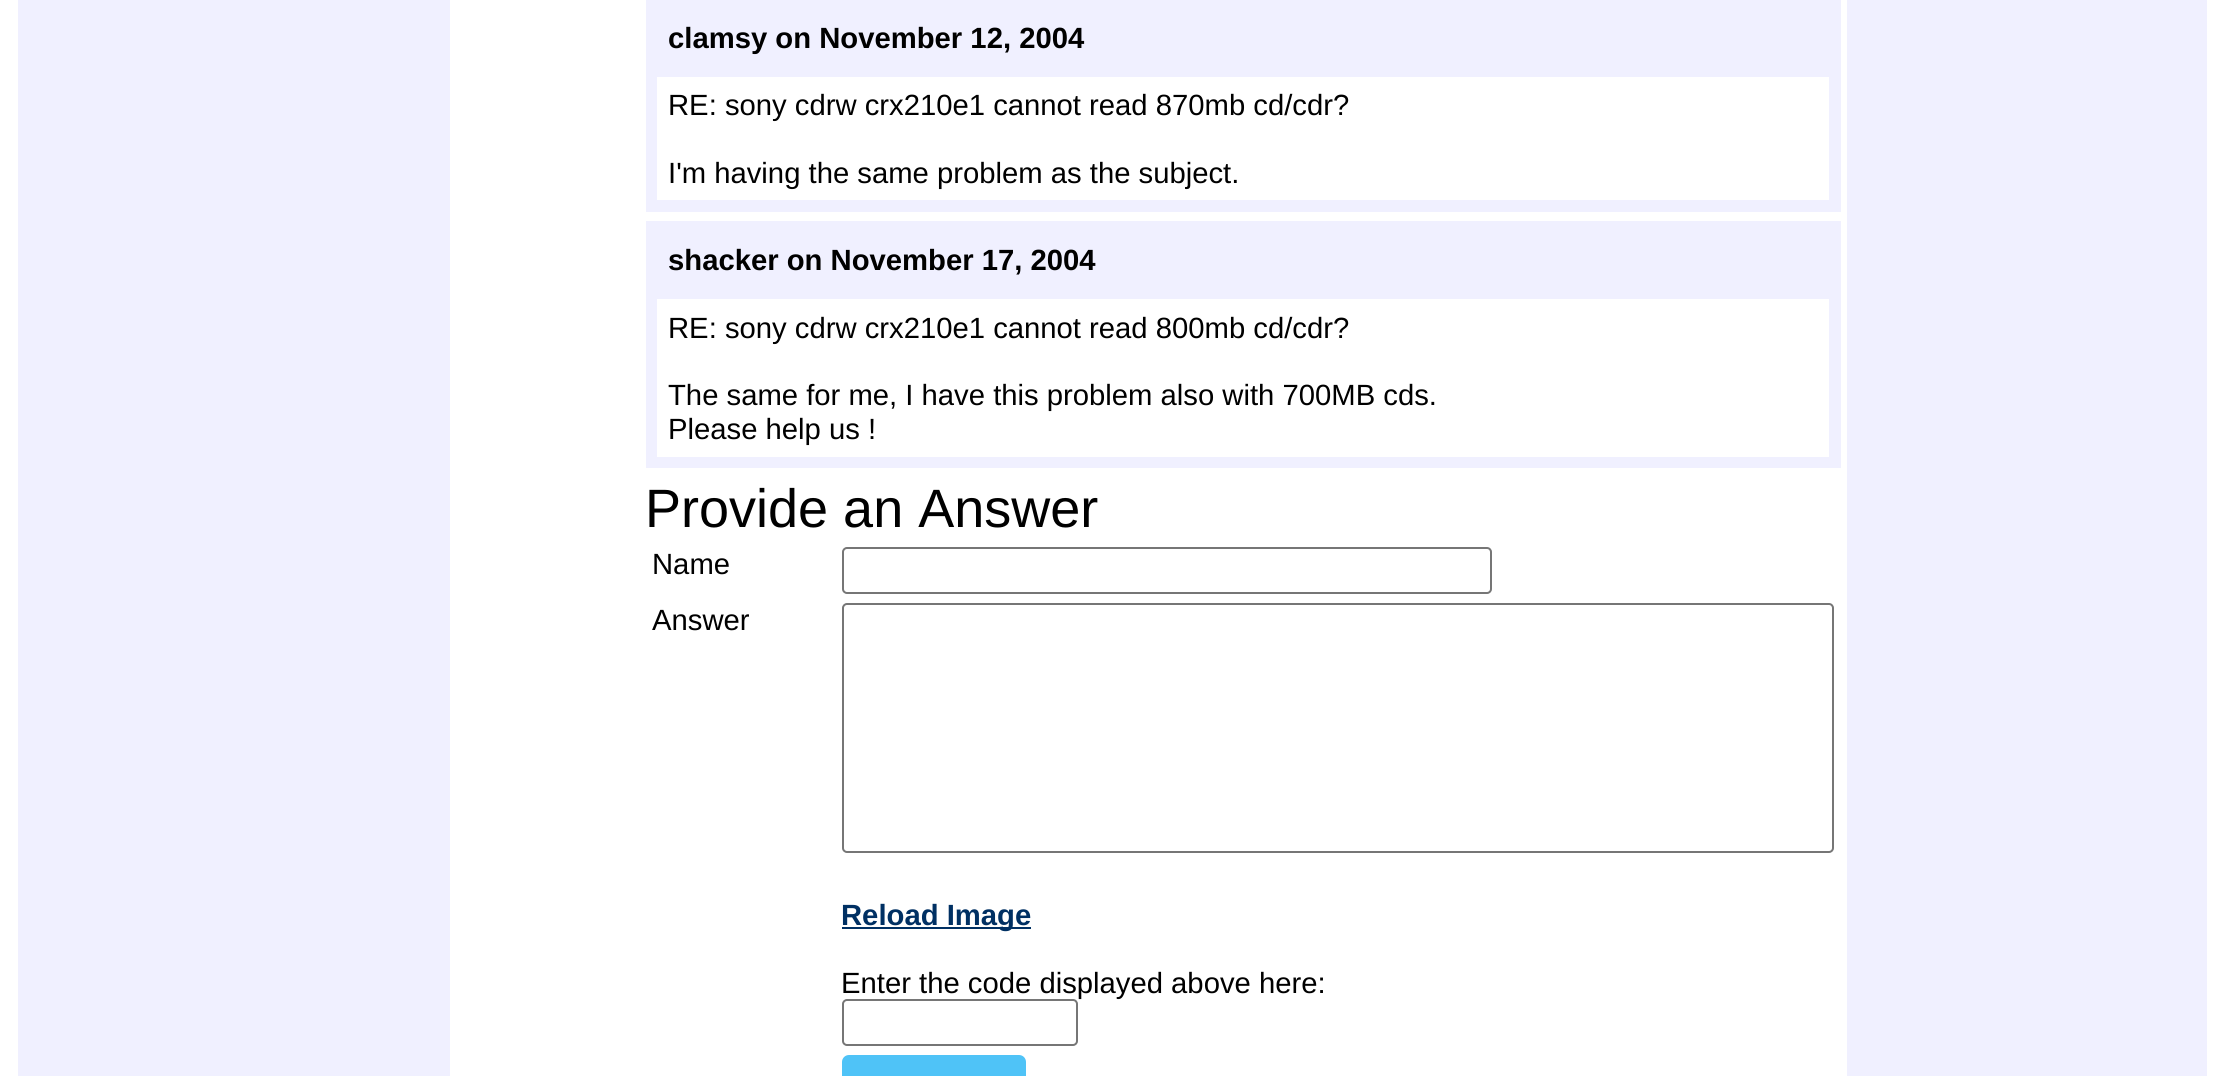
import math
import cairo


def use_color(cr, r, g, b):
  cr.set_source_rgb(r / 255, g / 255, b / 255)

def text(cr, x, y, s, family, size, color, bold=False, italic=False):
  cr.select_font_face(family, cairo.FONT_SLANT_ITALIC if italic else cairo.FONT_SLANT_NORMAL, cairo.FONT_WEIGHT_BOLD if bold else cairo.FONT_WEIGHT_NORMAL)
  cr.set_font_size(size)
  use_color(cr, *color)
  cr.move_to(x, y)
  cr.show_text(s)

def box(cr, x, y, w, h, *color):
  use_color(cr, *color)
  cr.rectangle(x, y, w, h)
  cr.fill()

def round_rect(cr, x, y, w, h, r):
  cr.new_sub_path()
  for i, (u, v) in enumerate([(x + w - r, y + h - r), (x + r, y + h - r), (x + r, y + r), (x + w - r, y + r)]):
    cr.arc(u, v, r, i * math.pi / 2, (i + 1) * math.pi / 2)
  cr.close_path()

def draw(cr):
  use_color(cr, 255, 255, 255)
  cr.paint()
  box(cr, 18, 0, 432, 1076, 240, 240, 255)
  box(cr, 646, 0, 1195, 212, 240, 240, 255)
  box(cr, 657, 77, 1172, 123, 255, 255, 255)
  box(cr, 646, 221, 1195, 247, 240, 240, 255)
  box(cr, 657, 299, 1172, 158, 255, 255, 255)
  round_rect(cr, 843, 548, 648, 45, 4)
  use_color(cr, 118, 118, 118)
  cr.stroke()
  round_rect(cr, 843, 604, 990, 248, 4)
  cr.stroke()
  box(cr, 842, 927, 189, 2, 0, 48, 99)
  use_color(cr, 79, 195, 247)
  round_rect(cr, 842, 1055, 184, 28, 7)
  cr.fill()
  box(cr, 1847, 0, 360, 1076, 240, 240, 255)
  text(cr, 668, 48, "clamsy on November 12, 2004", "Liberation Sans", 29.25, (0, 0, 0), bold=True)
  text(cr, 668, 115, "RE: sony cdrw crx210e1 cannot read 870mb cd/cdr?", "Liberation Sans", 29.25, (0, 0, 0))
  text(cr, 668, 183, "I'm having the same problem as the subject.", "Liberation Sans", 29.25, (0, 0, 0))
  text(cr, 668, 270, "shacker on November 17, 2004", "Liberation Sans", 29.25, (0, 0, 0), bold=True)
  text(cr, 668, 338, "RE: sony cdrw crx210e1 cannot read 800mb cd/cdr?", "Liberation Sans", 29.25, (0, 0, 0))
  text(cr, 668, 405, "The same for me, I have this problem also with 700MB cds.", "Liberation Sans", 29.25, (0, 0, 0))
  text(cr, 668, 439, "Please help us !", "Liberation Sans", 29.25, (0, 0, 0))
  text(cr, 645, 527, "Provide an Answer", "Liberation Sans", 54, (0, 0, 0))
  text(cr, 652, 574, "Name", "Liberation Sans", 29.25, (0, 0, 0))
  text(cr, 652, 630, "Answer", "Liberation Sans", 29.25, (0, 0, 0))
  text(cr, 841, 925, "Reload Image", "Liberation Sans", 29.25, (0, 48, 99), bold=True)
  text(cr, 841, 993, "Enter the code displayed above here:", "Liberation Sans", 29.25, (0, 0, 0))
  round_rect(cr, 843, 1000, 234, 45, 4)
  use_color(cr, 118, 118, 118)
  cr.stroke()


surface = cairo.ImageSurface(cairo.FORMAT_RGB24, 2224, 1076)
cr = cairo.Context(surface)
options = cairo.FontOptions()
options.set_hint_metrics(cairo.HINT_METRICS_OFF)
options.set_hint_style(cairo.HINT_STYLE_NONE)
cr.set_font_options(options)
cr.set_miter_limit(4)
draw(cr)
surface.write_to_png("out.png")
